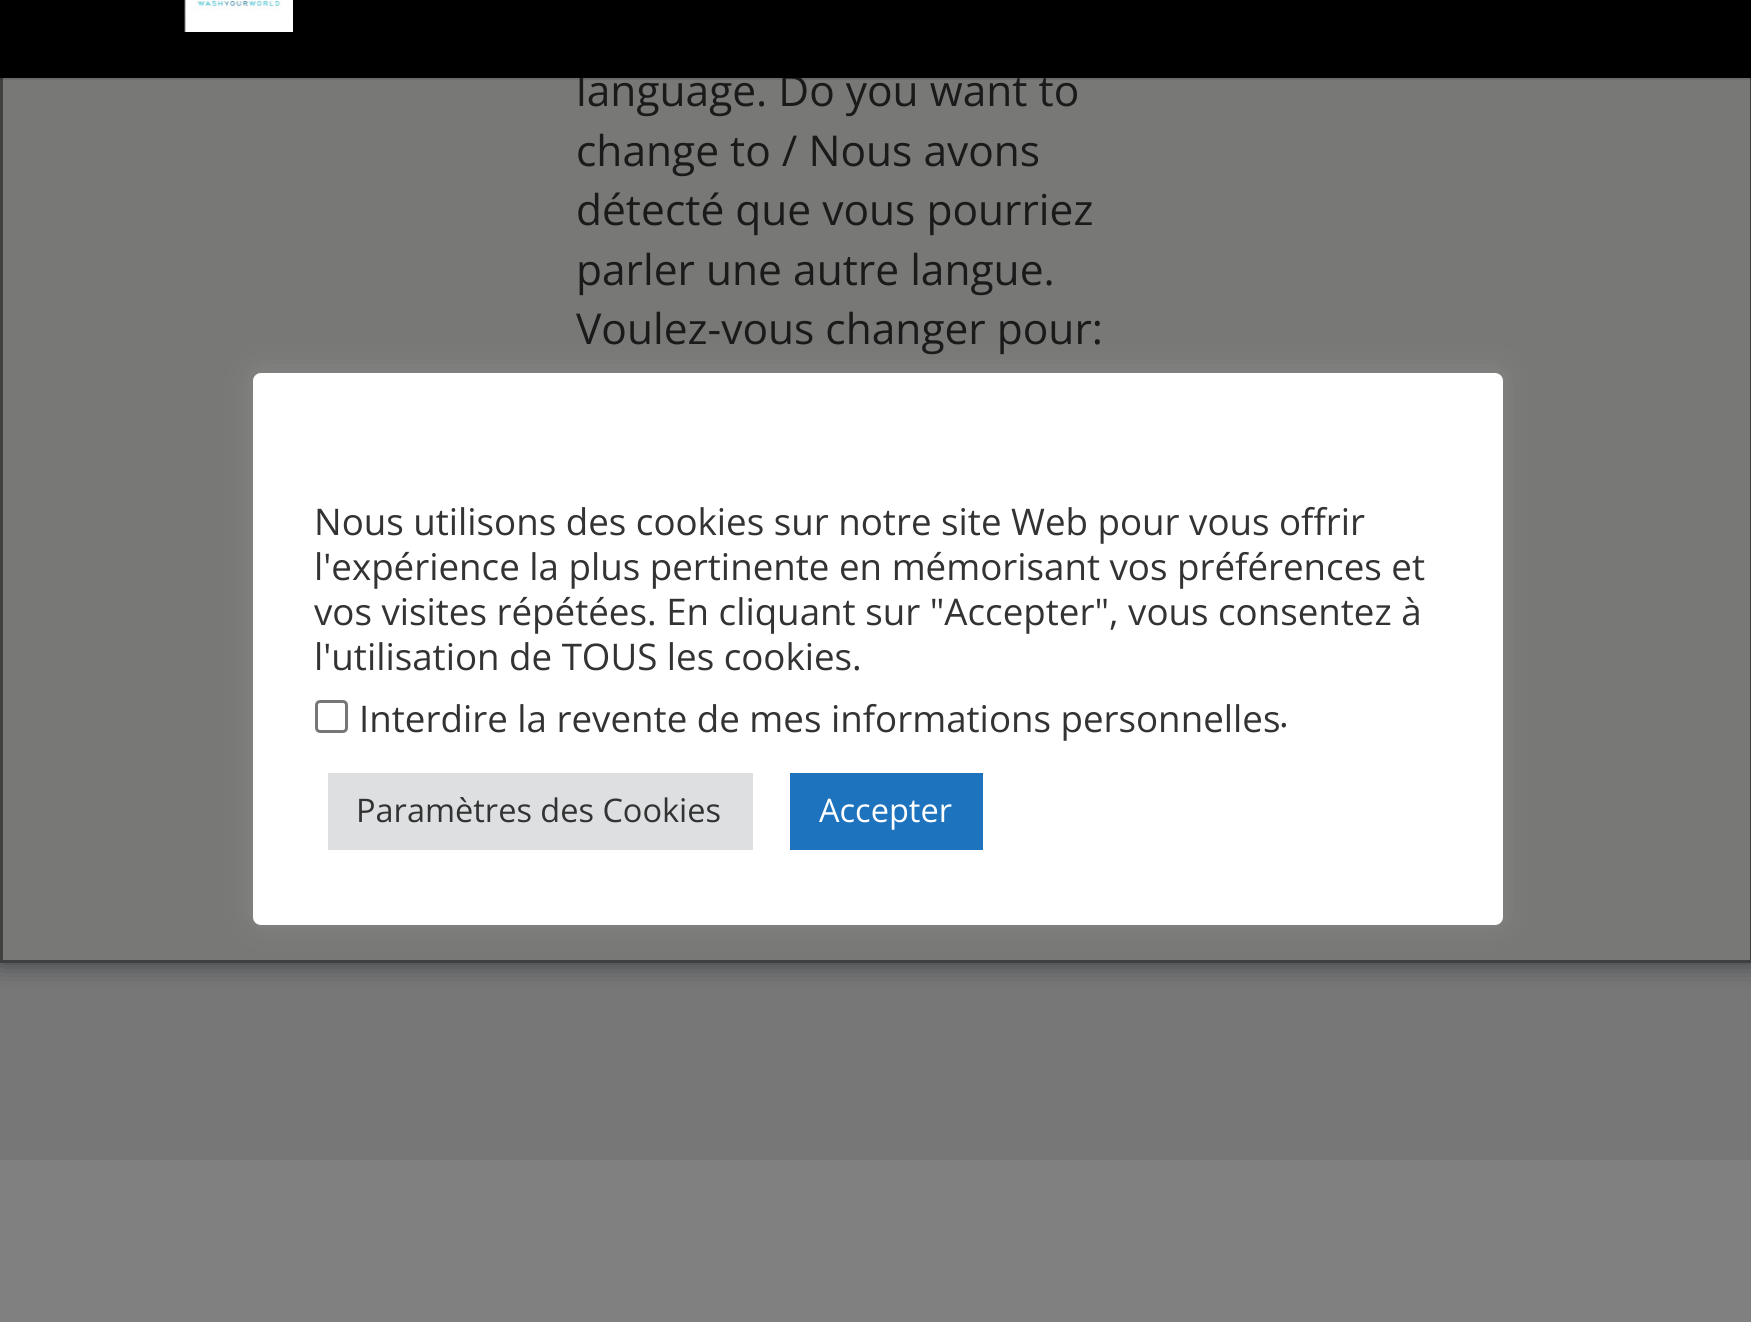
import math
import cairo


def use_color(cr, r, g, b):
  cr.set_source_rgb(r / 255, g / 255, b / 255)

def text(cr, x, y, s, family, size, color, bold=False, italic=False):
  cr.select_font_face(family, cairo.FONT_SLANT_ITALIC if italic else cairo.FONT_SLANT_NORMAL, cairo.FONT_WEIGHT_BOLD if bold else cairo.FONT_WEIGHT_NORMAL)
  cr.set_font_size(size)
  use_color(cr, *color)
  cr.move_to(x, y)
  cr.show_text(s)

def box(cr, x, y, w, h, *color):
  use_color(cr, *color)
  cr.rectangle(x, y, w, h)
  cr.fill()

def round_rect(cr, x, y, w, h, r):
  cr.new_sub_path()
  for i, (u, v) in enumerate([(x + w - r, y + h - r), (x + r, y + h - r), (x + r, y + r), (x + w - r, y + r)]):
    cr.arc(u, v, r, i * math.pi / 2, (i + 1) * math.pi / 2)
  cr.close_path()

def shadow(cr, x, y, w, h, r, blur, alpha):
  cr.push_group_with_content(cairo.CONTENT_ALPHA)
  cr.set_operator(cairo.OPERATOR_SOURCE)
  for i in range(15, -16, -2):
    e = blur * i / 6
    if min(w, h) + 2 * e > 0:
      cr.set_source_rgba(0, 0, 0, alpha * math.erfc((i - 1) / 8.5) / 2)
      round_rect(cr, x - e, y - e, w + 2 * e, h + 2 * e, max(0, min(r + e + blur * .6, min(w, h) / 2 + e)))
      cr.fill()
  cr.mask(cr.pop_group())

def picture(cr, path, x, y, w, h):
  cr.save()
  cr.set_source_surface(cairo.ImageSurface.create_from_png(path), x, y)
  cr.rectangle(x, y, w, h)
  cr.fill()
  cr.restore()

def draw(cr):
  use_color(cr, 119, 119, 119)
  cr.paint()
  use_color(cr, 54, 60, 65)
  shadow(cr, 0, -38, 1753, 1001, 0, 12.5, 1)
  box(cr, 3, 78, 1747, 882, 120, 120, 119)
  cr.rectangle(1.5, -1.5, 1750, 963)
  use_color(cr, 64, 64, 64)
  cr.set_line_width(3)
  cr.stroke()
  cr.set_source_rgba(0, 0, 0, 0.1)
  cr.new_path()
  cr.move_to(0, 78)
  cr.line_to(0, 80)
  cr.line_to(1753, 80)
  cr.line_to(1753, -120)
  cr.line_to(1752, -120)
  cr.line_to(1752, 78)
  cr.close_path()
  cr.fill()
  box(cr, 0, 1160, 1751, 162, 128, 128, 128)
  use_color(cr, 172, 171, 171)
  shadow(cr, 253, 370, 1250, 553, 8, 12.5, 0.3)
  use_color(cr, 255, 255, 255)
  round_rect(cr, 253, 373, 1250, 552, 8)
  cr.fill()
  round_rect(cr, 316.5, 701.5, 30, 30, 3.5)
  use_color(cr, 118, 118, 118)
  cr.stroke()
  box(cr, 328, 773, 425, 77, 222, 223, 224)
  box(cr, 790, 773, 193, 77, 30, 115, 190)
  text(cr, 576, 106, "language. Do you want to", "Open Sans", 42.5, (26, 26, 26))
  box(cr, 0, 0, 1751, 78, 0, 0, 0)
  picture(cr, "img_01.png", 184, 0, 109, 32)
  text(cr, 576, 166, "change to / Nous avons", "Open Sans", 42.5, (26, 26, 26))
  text(cr, 576, 225, "détecté que vous pourriez", "Open Sans", 42.5, (26, 26, 26))
  text(cr, 576, 285, "parler une autre langue.", "Open Sans", 42.5, (26, 26, 26))
  text(cr, 576, 344, "Voulez-vous changer pour:", "Open Sans", 42.5, (26, 26, 26))
  text(cr, 314, 535, "Nous utilisons des cookies sur notre site Web pour vous offrir", "Open Sans", 36.7, (51, 51, 51))
  text(cr, 314, 580, "l'expérience la plus pertinente en mémorisant vos préférences et", "Open Sans", 36.7, (51, 51, 51))
  text(cr, 314, 625, "vos visites répétées. En cliquant sur \"Accepter\", vous consentez à", "Open Sans", 36.7, (51, 51, 51))
  text(cr, 314, 670, "l'utilisation de TOUS les cookies.", "Open Sans", 36.7, (51, 51, 51))
  text(cr, 359, 732, "Interdire la revente de mes informations personnelles", "Open Sans", 36.7, (51, 51, 51))
  text(cr, 1279, 727, ".", "Open Sans", 36.7, (51, 51, 51))
  text(cr, 356, 822, "Paramètres des Cookies", "Open Sans", 32.5, (51, 51, 51))
  text(cr, 819, 822, "Accepter", "Open Sans", 32.5, (255, 255, 255))


surface = cairo.ImageSurface(cairo.FORMAT_RGB24, 1751, 1322)
cr = cairo.Context(surface)
options = cairo.FontOptions()
options.set_hint_metrics(cairo.HINT_METRICS_OFF)
options.set_hint_style(cairo.HINT_STYLE_NONE)
cr.set_font_options(options)
cr.set_miter_limit(4)
draw(cr)
surface.write_to_png("out.png")
